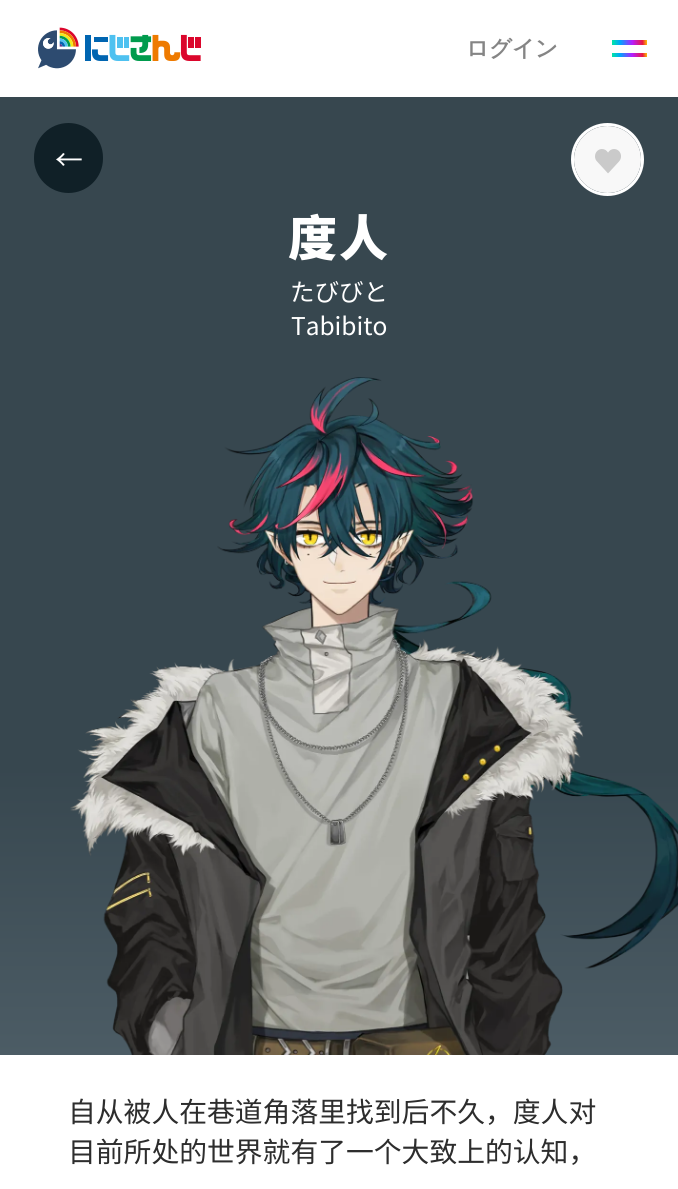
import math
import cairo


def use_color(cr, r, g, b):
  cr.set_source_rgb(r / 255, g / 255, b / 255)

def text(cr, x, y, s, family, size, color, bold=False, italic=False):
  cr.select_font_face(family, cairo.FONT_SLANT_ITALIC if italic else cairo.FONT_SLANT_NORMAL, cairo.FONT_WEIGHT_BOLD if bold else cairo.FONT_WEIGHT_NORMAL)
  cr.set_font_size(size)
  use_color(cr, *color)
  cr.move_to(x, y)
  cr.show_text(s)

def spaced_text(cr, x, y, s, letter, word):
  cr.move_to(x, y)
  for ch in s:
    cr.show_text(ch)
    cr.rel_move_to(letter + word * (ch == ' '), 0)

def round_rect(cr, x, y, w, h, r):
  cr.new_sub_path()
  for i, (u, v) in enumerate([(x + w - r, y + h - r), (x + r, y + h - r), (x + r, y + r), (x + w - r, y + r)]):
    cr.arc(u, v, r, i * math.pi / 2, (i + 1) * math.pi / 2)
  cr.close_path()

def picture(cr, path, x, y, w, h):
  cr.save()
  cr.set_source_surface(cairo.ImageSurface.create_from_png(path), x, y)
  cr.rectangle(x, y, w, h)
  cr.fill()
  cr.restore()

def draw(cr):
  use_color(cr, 255, 255, 255)
  cr.paint()
  picture(cr, "img_01.png", 38, 27, 163, 42)
  gradient = cairo.LinearGradient(612, 44, 647, 41)
  gradient.add_color_stop_rgba(0, 0, 0.91, 0.635, 1)
  gradient.add_color_stop_rgba(0.24, 0, 0.639, 1, 1)
  gradient.add_color_stop_rgba(0.58, 0.714, 0.11, 1, 1)
  gradient.add_color_stop_rgba(0.87, 0.918, 0.098, 0.243, 1)
  gradient.add_color_stop_rgba(1, 0.992, 0.773, 0, 1)
  cr.set_source(gradient)
  cr.rectangle(612, 40, 35, 5)
  cr.fill()
  gradient = cairo.LinearGradient(612, 57, 647, 53)
  gradient.add_color_stop_rgba(0, 0, 0.91, 0.635, 1)
  gradient.add_color_stop_rgba(0.24, 0, 0.639, 1, 1)
  gradient.add_color_stop_rgba(0.58, 0.714, 0.11, 1, 1)
  gradient.add_color_stop_rgba(0.87, 0.918, 0.098, 0.243, 1)
  gradient.add_color_stop_rgba(1, 0.992, 0.773, 0, 1)
  cr.set_source(gradient)
  cr.rectangle(612, 53, 35, 4)
  cr.fill()
  gradient = cairo.LinearGradient(339, 97, 339, 1055)
  gradient.add_color_stop_rgba(0.7, 0.216, 0.278, 0.31, 1)
  gradient.add_color_stop_rgba(1, 0.298, 0.361, 0.396, 1)
  cr.set_source(gradient)
  cr.rectangle(0, 97, 678, 958)
  cr.fill()
  use_color(cr, 16, 32, 39)
  round_rect(cr, 34, 123, 69, 70, 34.5)
  cr.fill()
  cr.arc(607.5, 159.5, 35, 0, 2 * math.pi)
  use_color(cr, 255, 255, 255)
  cr.set_line_width(3)
  cr.stroke()
  use_color(cr, 248, 248, 248)
  cr.arc(607.5, 159.5, 33.5, 0, 2 * math.pi)
  cr.fill()
  picture(cr, "img_02.png", 595, 149, 26, 25)
  picture(cr, "img_03.png", 70, 377, 608, 678)
  text(cr, 466, 56, "ログイン", "WenQuanYi Zen Hei", 22.5, (133, 133, 133), bold=True)
  text(cr, 55, 170, "←", "Noto Sans JP", 27.8, (255, 255, 255))
  cr.select_font_face("Noto Sans SC Black")
  cr.set_font_size(49)
  spaced_text(cr, 288, 256, "度人", 2, 0)
  text(cr, 290, 301, "たびびと", "Noto Sans JP", 24.5, (255, 255, 255))
  text(cr, 291, 335, "Tabibito", "Noto Sans JP", 24.5, (255, 255, 255))
  text(cr, 68, 1122, "自从被人在巷道角落里找到后不久，度人对", "Noto Sans SC", 27.8, (45, 45, 45))
  text(cr, 68, 1162, "目前所处的世界就有了一个大致上的认知，", "Noto Sans SC", 27.8, (45, 45, 45))


surface = cairo.ImageSurface(cairo.FORMAT_RGB24, 678, 1189)
cr = cairo.Context(surface)
options = cairo.FontOptions()
options.set_hint_metrics(cairo.HINT_METRICS_OFF)
options.set_hint_style(cairo.HINT_STYLE_NONE)
cr.set_font_options(options)
cr.set_miter_limit(4)
draw(cr)
surface.write_to_png("out.png")
